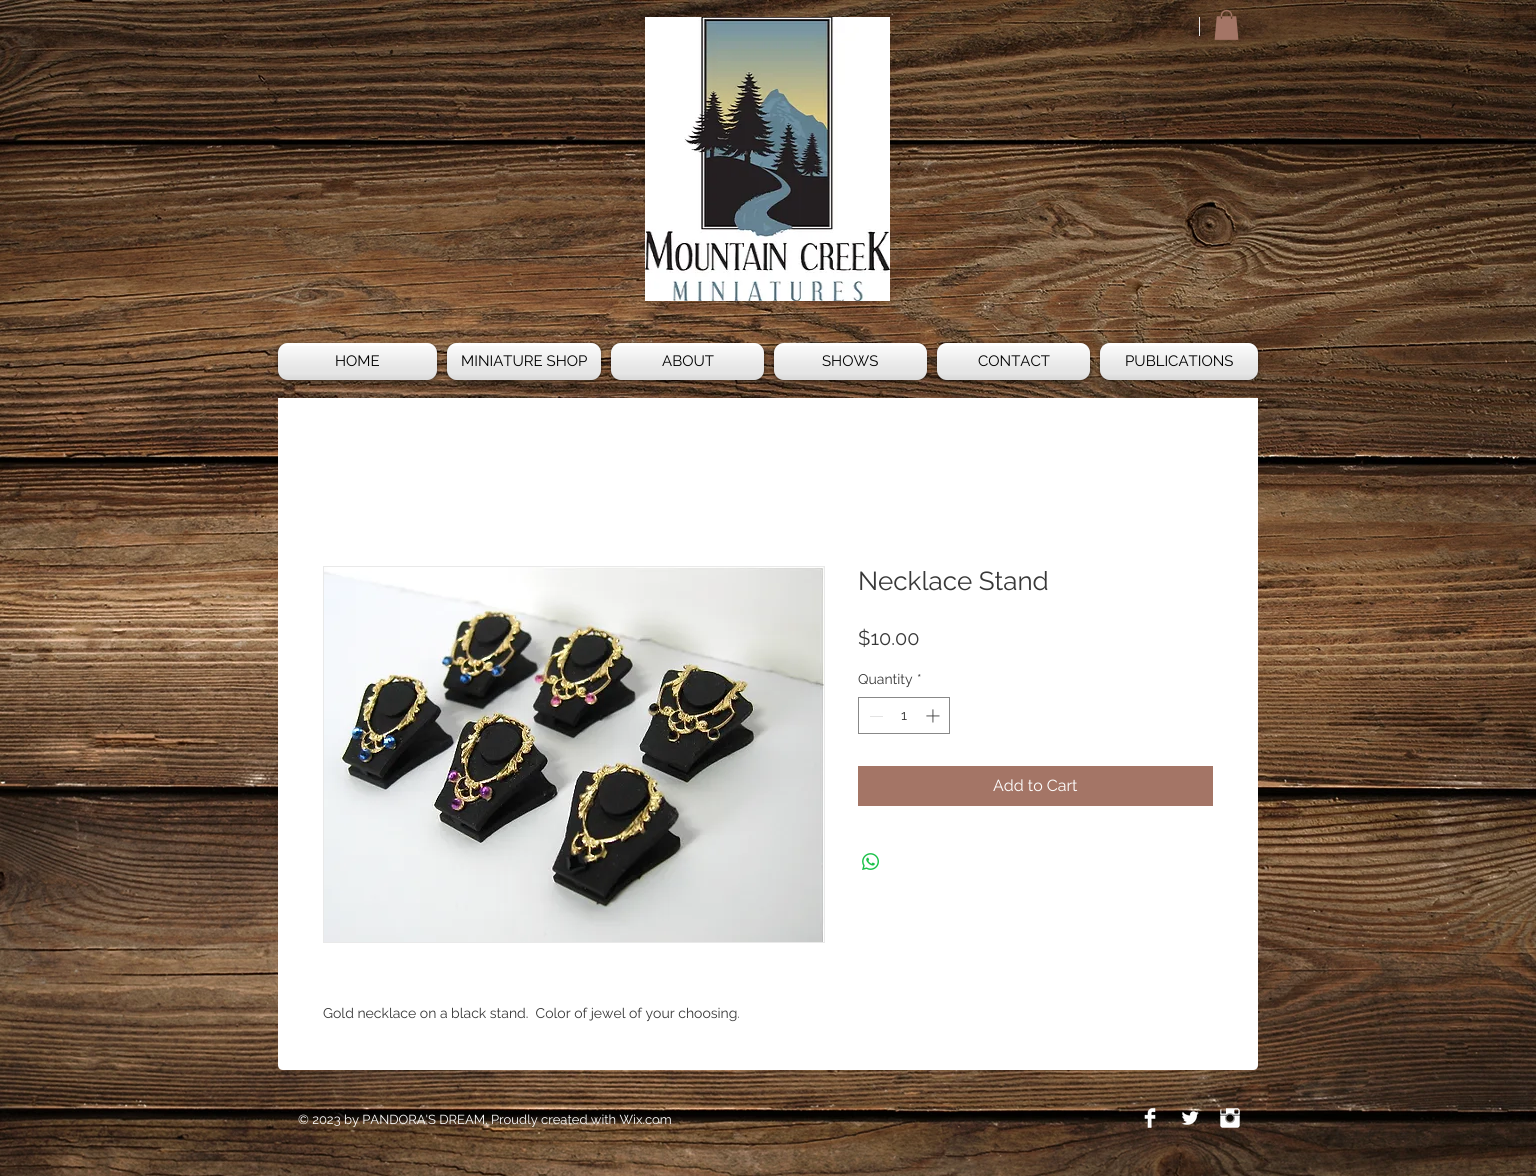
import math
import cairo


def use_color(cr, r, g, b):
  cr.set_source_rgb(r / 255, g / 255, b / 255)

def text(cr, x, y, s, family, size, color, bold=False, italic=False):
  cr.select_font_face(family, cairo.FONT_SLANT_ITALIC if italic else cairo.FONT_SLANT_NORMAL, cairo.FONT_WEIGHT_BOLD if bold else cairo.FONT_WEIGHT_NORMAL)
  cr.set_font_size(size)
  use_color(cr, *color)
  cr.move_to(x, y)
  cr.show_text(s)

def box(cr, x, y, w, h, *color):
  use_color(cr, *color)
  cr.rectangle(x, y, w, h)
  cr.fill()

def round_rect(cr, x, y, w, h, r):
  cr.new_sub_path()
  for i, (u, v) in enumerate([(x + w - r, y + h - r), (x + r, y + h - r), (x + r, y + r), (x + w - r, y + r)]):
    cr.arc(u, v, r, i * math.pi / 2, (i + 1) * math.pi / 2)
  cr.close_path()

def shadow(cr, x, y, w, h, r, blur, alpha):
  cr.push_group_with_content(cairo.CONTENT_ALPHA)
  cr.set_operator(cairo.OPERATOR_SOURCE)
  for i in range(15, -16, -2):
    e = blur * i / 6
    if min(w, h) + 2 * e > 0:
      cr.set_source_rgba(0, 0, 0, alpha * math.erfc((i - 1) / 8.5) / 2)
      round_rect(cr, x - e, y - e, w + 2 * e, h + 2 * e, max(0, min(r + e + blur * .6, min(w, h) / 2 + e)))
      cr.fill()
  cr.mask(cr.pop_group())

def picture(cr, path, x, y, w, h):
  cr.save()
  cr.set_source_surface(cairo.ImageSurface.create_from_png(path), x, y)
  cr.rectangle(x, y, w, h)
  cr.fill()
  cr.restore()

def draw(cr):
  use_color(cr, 255, 255, 255)
  cr.paint()
  picture(cr, "img_01.png", 0, 0, 1536, 1176)
  picture(cr, "img_02.png", 645, 17, 245, 284)
  box(cr, 1199, 17, 1, 19, 233, 233, 233)
  picture(cr, "img_03.png", 1214, 10, 25, 30)
  use_color(cr, 0, 0, 0)
  shadow(cr, 278, 344, 159, 37, 10, 2, 0.6)
  use_color(cr, 255, 255, 255)
  round_rect(cr, 278, 343, 159, 37, 10)
  cr.fill()
  picture(cr, "img_04.png", 278, 343, 159, 31)
  picture(cr, "img_05.png", 278, 346, 159, 34)
  use_color(cr, 0, 0, 0)
  shadow(cr, 447, 344, 154, 37, 10, 2, 0.6)
  use_color(cr, 255, 255, 255)
  round_rect(cr, 447, 343, 154, 37, 10)
  cr.fill()
  picture(cr, "img_06.png", 447, 343, 154, 31)
  picture(cr, "img_07.png", 447, 346, 154, 34)
  use_color(cr, 0, 0, 0)
  shadow(cr, 611, 344, 153, 37, 10, 2, 0.6)
  use_color(cr, 255, 255, 255)
  round_rect(cr, 611, 343, 153, 37, 10)
  cr.fill()
  picture(cr, "img_08.png", 611, 343, 153, 31)
  picture(cr, "img_09.png", 611, 346, 153, 34)
  use_color(cr, 0, 0, 0)
  shadow(cr, 774, 344, 153, 37, 10, 2, 0.6)
  use_color(cr, 255, 255, 255)
  round_rect(cr, 774, 343, 153, 37, 10)
  cr.fill()
  picture(cr, "img_10.png", 774, 343, 153, 31)
  picture(cr, "img_11.png", 774, 346, 153, 34)
  use_color(cr, 0, 0, 0)
  shadow(cr, 937, 344, 153, 37, 10, 2, 0.6)
  use_color(cr, 255, 255, 255)
  round_rect(cr, 937, 343, 153, 37, 10)
  cr.fill()
  picture(cr, "img_12.png", 937, 343, 153, 31)
  picture(cr, "img_13.png", 937, 346, 153, 34)
  use_color(cr, 0, 0, 0)
  shadow(cr, 1100, 344, 158, 37, 10, 2, 0.6)
  use_color(cr, 255, 255, 255)
  round_rect(cr, 1100, 343, 158, 37, 10)
  cr.fill()
  picture(cr, "img_14.png", 1100, 343, 158, 31)
  picture(cr, "img_15.png", 1100, 346, 158, 34)
  cr.new_path()
  cr.move_to(278, 398)
  cr.line_to(1258, 398)
  cr.line_to(1258, 1065)
  cr.curve_to(1258, 1068, 1256, 1070, 1253, 1070)
  cr.line_to(283, 1070)
  cr.curve_to(280, 1070, 278, 1068, 278, 1065)
  cr.close_path()
  cr.fill()
  cr.rectangle(858.5, 697.5, 91, 36)
  use_color(cr, 136, 136, 136)
  cr.set_line_width(1)
  cr.stroke()
  box(cr, 870, 716, 13, 1, 227, 227, 227)
  picture(cr, "img_16.png", 926, 709, 14, 14)
  box(cr, 858, 766, 355, 40, 164, 117, 102)
  picture(cr, "img_17.png", 862, 853, 17, 17)
  cr.rectangle(323.5, 566.5, 501, 376)
  use_color(cr, 233, 233, 233)
  cr.stroke()
  picture(cr, "img_18.png", 324, 567, 500, 375)
  picture(cr, "img_19.png", 1144, 1108, 12, 20)
  picture(cr, "img_20.png", 1181, 1111, 18, 14)
  picture(cr, "img_21.png", 1220, 1108, 20, 20)
  text(cr, 335, 366, "HOME", "Raleway", 15, (0, 0, 0))
  text(cr, 461, 366, "MINIATURE SHOP", "Raleway", 15, (0, 0, 0))
  text(cr, 662, 366, "ABOUT", "Raleway", 15, (0, 0, 0))
  text(cr, 822, 366, "SHOWS", "Raleway", 15, (0, 0, 0))
  text(cr, 978, 366, "CONTACT", "Raleway", 15, (0, 0, 0))
  text(cr, 1125, 366, "PUBLICATIONS", "Raleway", 15, (0, 0, 0))
  text(cr, 858, 590, "Necklace Stand", "Raleway", 26, (56, 56, 56))
  text(cr, 858, 645, "$10.00", "Raleway", 20, (56, 56, 56))
  text(cr, 858, 684, "Quantity", "Raleway", 14, (56, 56, 56))
  text(cr, 917, 684, "*", "Raleway", 14, (56, 56, 56))
  text(cr, 901, 720, "1", "Raleway", 14, (56, 56, 56))
  text(cr, 993, 791, "Add to Cart", "Raleway", 16, (255, 255, 255))
  text(cr, 323, 1018, "Gold necklace on a black stand.  Color of jewel of your choosing.", "Raleway", 14, (56, 56, 56))
  text(cr, 298, 1124, "© 2023 by PANDORA'S DREAM. Proudly created with Wix.com", "Raleway", 13, (255, 255, 255))


surface = cairo.ImageSurface(cairo.FORMAT_RGB24, 1536, 1176)
cr = cairo.Context(surface)
options = cairo.FontOptions()
options.set_hint_metrics(cairo.HINT_METRICS_OFF)
options.set_hint_style(cairo.HINT_STYLE_NONE)
cr.set_font_options(options)
cr.set_miter_limit(4)
draw(cr)
surface.write_to_png("out.png")
